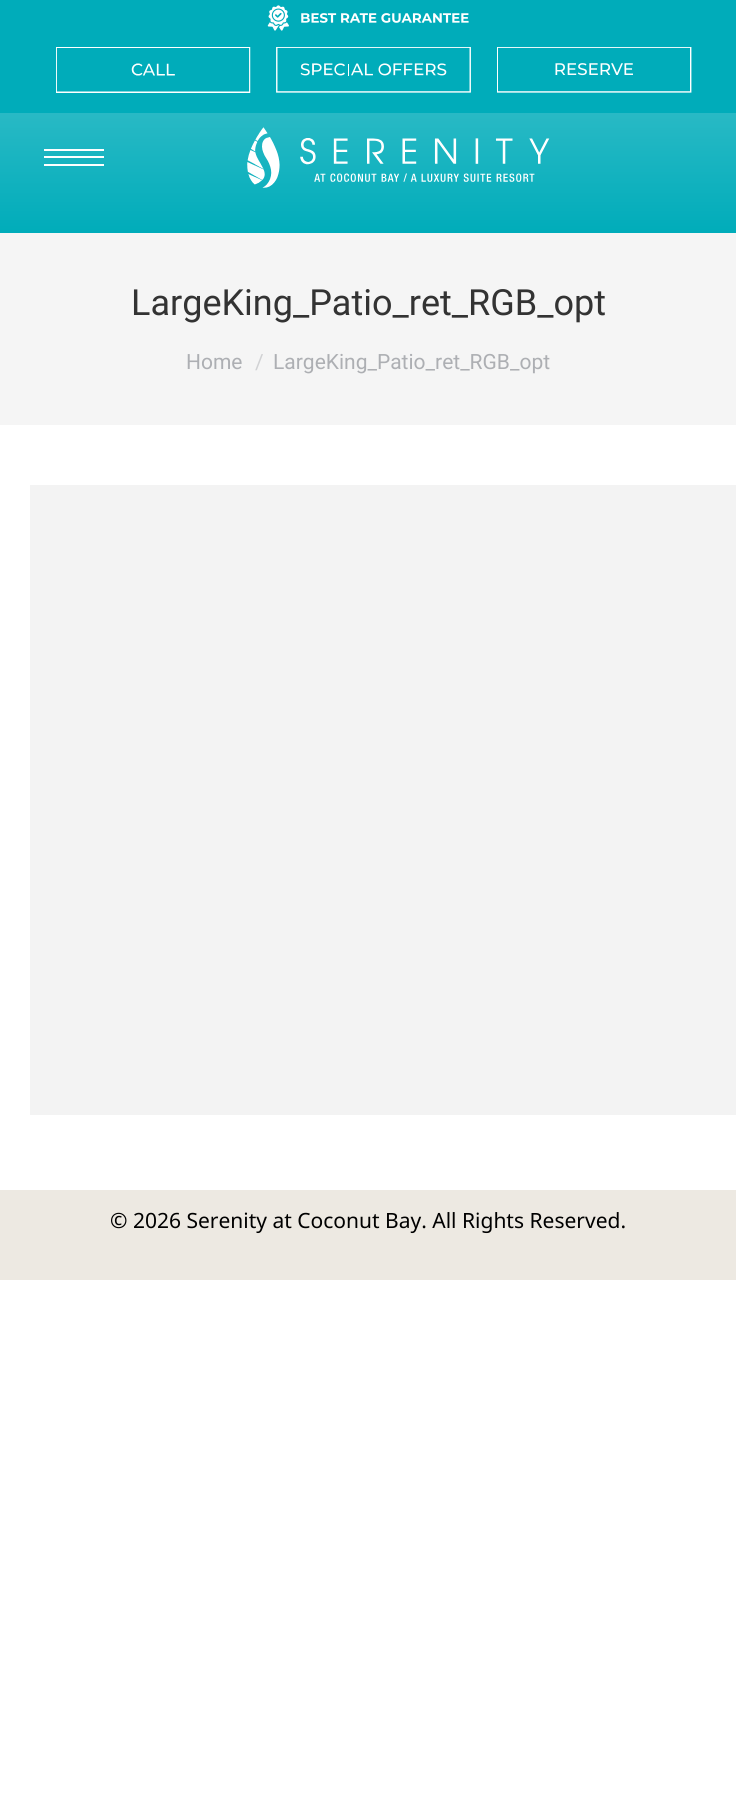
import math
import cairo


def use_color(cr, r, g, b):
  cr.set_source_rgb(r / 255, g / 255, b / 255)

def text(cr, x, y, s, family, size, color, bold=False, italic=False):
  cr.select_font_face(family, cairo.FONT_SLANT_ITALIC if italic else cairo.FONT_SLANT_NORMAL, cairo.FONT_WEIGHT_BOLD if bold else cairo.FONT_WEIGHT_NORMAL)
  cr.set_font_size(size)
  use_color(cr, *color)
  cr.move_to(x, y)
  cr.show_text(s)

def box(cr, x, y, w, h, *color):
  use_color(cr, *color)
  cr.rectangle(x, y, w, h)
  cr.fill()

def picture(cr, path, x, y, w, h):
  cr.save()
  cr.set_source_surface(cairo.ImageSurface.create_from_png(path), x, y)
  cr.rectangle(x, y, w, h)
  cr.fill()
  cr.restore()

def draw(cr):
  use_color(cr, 255, 255, 255)
  cr.paint()
  gradient = cairo.LinearGradient(368, 233, 368, 0)
  gradient.add_color_stop_rgba(0, 0, 0.675, 0.729, 1)
  gradient.add_color_stop_rgba(0.99, 0.302, 0.773, 0.812, 1)
  cr.set_source(gradient)
  cr.rectangle(0, 113, 736, 120)
  cr.fill()
  box(cr, 0, 0, 736, 113, 0, 172, 186)
  picture(cr, "img_01.png", 267, 5, 202, 26)
  picture(cr, "img_02.png", 56, 47, 195, 46)
  picture(cr, "img_03.png", 276, 47, 195, 46)
  picture(cr, "img_04.png", 497, 47, 195, 46)
  box(cr, 44, 149, 60, 2, 255, 255, 255)
  box(cr, 44, 156, 60, 2, 255, 255, 255)
  box(cr, 44, 164, 60, 2, 255, 255, 255)
  picture(cr, "img_05.png", 247, 127, 303, 61)
  box(cr, 0, 233, 736, 192, 245, 245, 245)
  box(cr, 30, 485, 706, 630, 243, 243, 243)
  box(cr, 0, 1190, 736, 90, 237, 233, 226)
  text(cr, 131, 315, "LargeKing_Patio_ret_RGB_opt", "Roboto", 36, (51, 51, 51))
  text(cr, 186, 369, "Home", "Roboto", 21, (173, 175, 179))
  text(cr, 255, 369, "/", "Roboto", 21, (209, 210, 212))
  text(cr, 273, 369, "LargeKing_Patio_ret_RGB_opt", "Roboto", 21, (173, 175, 179))
  text(cr, 110, 1228, "© 2026 Serenity at Coconut Bay. All Rights Reserved.", "Noto Sans", 21, (0, 0, 0))


surface = cairo.ImageSurface(cairo.FORMAT_RGB24, 736, 1818)
cr = cairo.Context(surface)
options = cairo.FontOptions()
options.set_hint_metrics(cairo.HINT_METRICS_OFF)
options.set_hint_style(cairo.HINT_STYLE_NONE)
cr.set_font_options(options)
cr.set_miter_limit(4)
draw(cr)
surface.write_to_png("out.png")
